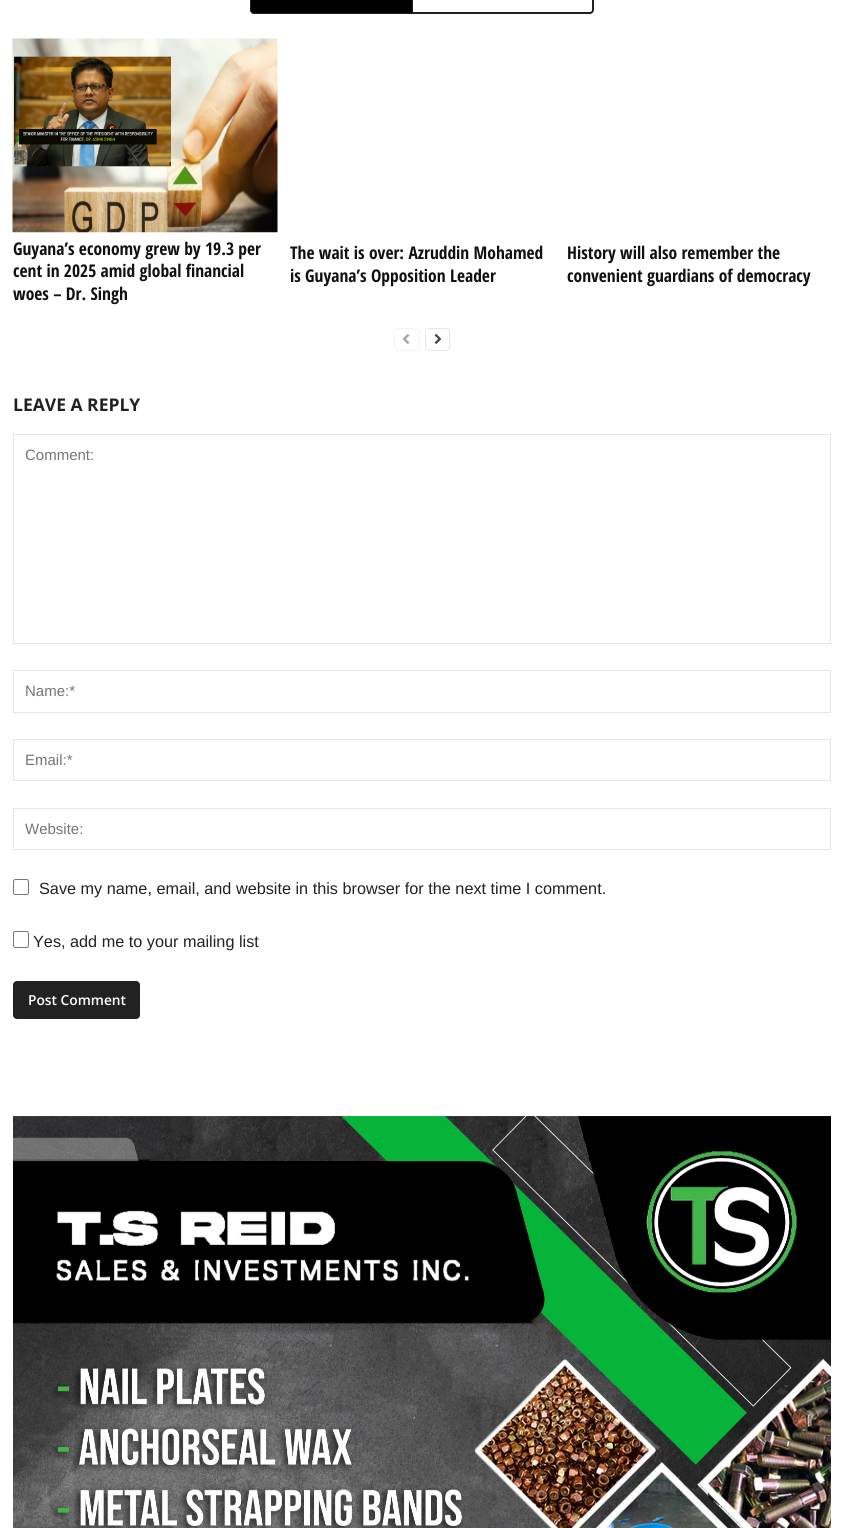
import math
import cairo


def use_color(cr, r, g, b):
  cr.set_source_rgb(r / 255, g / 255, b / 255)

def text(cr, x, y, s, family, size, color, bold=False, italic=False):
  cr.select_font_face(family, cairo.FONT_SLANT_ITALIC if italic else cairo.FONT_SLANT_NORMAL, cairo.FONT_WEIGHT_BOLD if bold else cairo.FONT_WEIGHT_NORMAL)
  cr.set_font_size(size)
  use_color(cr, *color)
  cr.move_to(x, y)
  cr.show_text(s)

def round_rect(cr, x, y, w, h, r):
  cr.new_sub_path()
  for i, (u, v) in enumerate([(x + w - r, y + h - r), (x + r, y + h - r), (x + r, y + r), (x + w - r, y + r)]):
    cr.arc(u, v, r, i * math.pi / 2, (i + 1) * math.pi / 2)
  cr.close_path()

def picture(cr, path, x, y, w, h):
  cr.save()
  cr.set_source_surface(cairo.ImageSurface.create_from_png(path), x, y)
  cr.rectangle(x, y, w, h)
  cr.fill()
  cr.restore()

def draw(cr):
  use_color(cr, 255, 255, 255)
  cr.paint()
  use_color(cr, 0, 0, 0)
  cr.new_path()
  cr.move_to(254, -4.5)
  cr.line_to(412.5, -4.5)
  cr.line_to(412.5, 13.5)
  cr.line_to(254, 13.5)
  cr.curve_to(252, 13.5, 250.5, 12, 250.5, 10)
  cr.line_to(250.5, -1)
  cr.curve_to(250.5, -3, 252, -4.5, 254, -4.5)
  cr.close_path()
  cr.fill_preserve()
  use_color(cr, 34, 34, 34)
  cr.set_line_width(1)
  cr.stroke()
  cr.set_fill_rule(cairo.FILL_RULE_EVEN_ODD)
  cr.new_path()
  cr.move_to(412, -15)
  cr.line_to(590, -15)
  cr.curve_to(592, -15, 594, -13, 594, -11)
  cr.line_to(594, 10)
  cr.curve_to(594, 12, 592, 14, 590, 14)
  cr.line_to(412, 14)
  cr.close_path()
  cr.move_to(412, -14)
  cr.line_to(590, -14)
  cr.curve_to(591, -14, 592, -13, 592, -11)
  cr.line_to(592, 10)
  cr.curve_to(592, 11, 591, 12, 590, 12)
  cr.line_to(412, 12)
  cr.close_path()
  cr.fill()
  picture(cr, "img_01.png", 12, 38, 266, 195)
  round_rect(cr, 394.5, 328.5, 25, 22, 3.5)
  use_color(cr, 243, 243, 243)
  cr.stroke()
  picture(cr, "img_02.png", 402, 334, 8, 10)
  round_rect(cr, 425.5, 328.5, 24, 22, 3.5)
  use_color(cr, 230, 230, 230)
  cr.stroke()
  picture(cr, "img_03.png", 434, 333, 8, 11)
  cr.rectangle(13.5, 434.5, 817, 209)
  cr.stroke()
  cr.rectangle(13.5, 670.5, 817, 42)
  cr.stroke()
  cr.rectangle(13.5, 739.5, 817, 41)
  cr.stroke()
  cr.rectangle(13.5, 808.5, 817, 41)
  cr.stroke()
  round_rect(cr, 13.5, 879.5, 15, 15, 2)
  use_color(cr, 118, 118, 118)
  cr.stroke()
  round_rect(cr, 13.5, 931.5, 15, 16, 2)
  cr.stroke()
  use_color(cr, 34, 34, 34)
  round_rect(cr, 13, 981, 127, 38, 4)
  cr.fill()
  picture(cr, "img_04.png", 13, 1116, 818, 412)
  text(cr, 13, 255, "Guyana’s economy grew by 19.3 per", "Open Sans Condensed", 17.5, (17, 17, 17), bold=True)
  text(cr, 13, 277, "cent in 2025 amid global financial", "Open Sans Condensed", 17.5, (17, 17, 17), bold=True)
  text(cr, 13, 300, "woes – Dr. Singh", "Open Sans Condensed", 17.5, (17, 17, 17), bold=True)
  text(cr, 290, 259, "The wait is over: Azruddin Mohamed", "Open Sans Condensed", 17.5, (17, 17, 17), bold=True)
  text(cr, 290, 282, "is Guyana’s Opposition Leader", "Open Sans Condensed", 17.5, (17, 17, 17), bold=True)
  text(cr, 567, 259, "History will also remember the", "Open Sans Condensed", 17.5, (17, 17, 17), bold=True)
  text(cr, 567, 282, "convenient guardians of democracy", "Open Sans Condensed", 17.5, (17, 17, 17), bold=True)
  text(cr, 13, 411, "LEAVE A REPLY", "Open Sans", 17.5, (34, 34, 34), bold=True)
  text(cr, 25, 460, "Comment:", "Liberation Sans", 15, (117, 117, 117))
  text(cr, 25, 696, "Name:*", "Liberation Sans", 15, (117, 117, 117))
  text(cr, 25, 765, "Email:*", "Liberation Sans", 15, (117, 117, 117))
  text(cr, 25, 834, "Website:", "Liberation Sans", 15, (117, 117, 117))
  text(cr, 39, 894, "Save my name, email, and website in this browser for the next time I comment.", "Liberation Sans", 16.25, (34, 34, 34))
  text(cr, 33, 947, "Yes, add me to your mailing list", "Liberation Sans", 16.25, (34, 34, 34))
  text(cr, 28, 1005, "Post Comment", "Open Sans SemiBold", 13.75, (255, 255, 255))


surface = cairo.ImageSurface(cairo.FORMAT_RGB24, 843, 1528)
cr = cairo.Context(surface)
options = cairo.FontOptions()
options.set_hint_metrics(cairo.HINT_METRICS_OFF)
options.set_hint_style(cairo.HINT_STYLE_NONE)
cr.set_font_options(options)
cr.set_miter_limit(4)
draw(cr)
surface.write_to_png("out.png")
